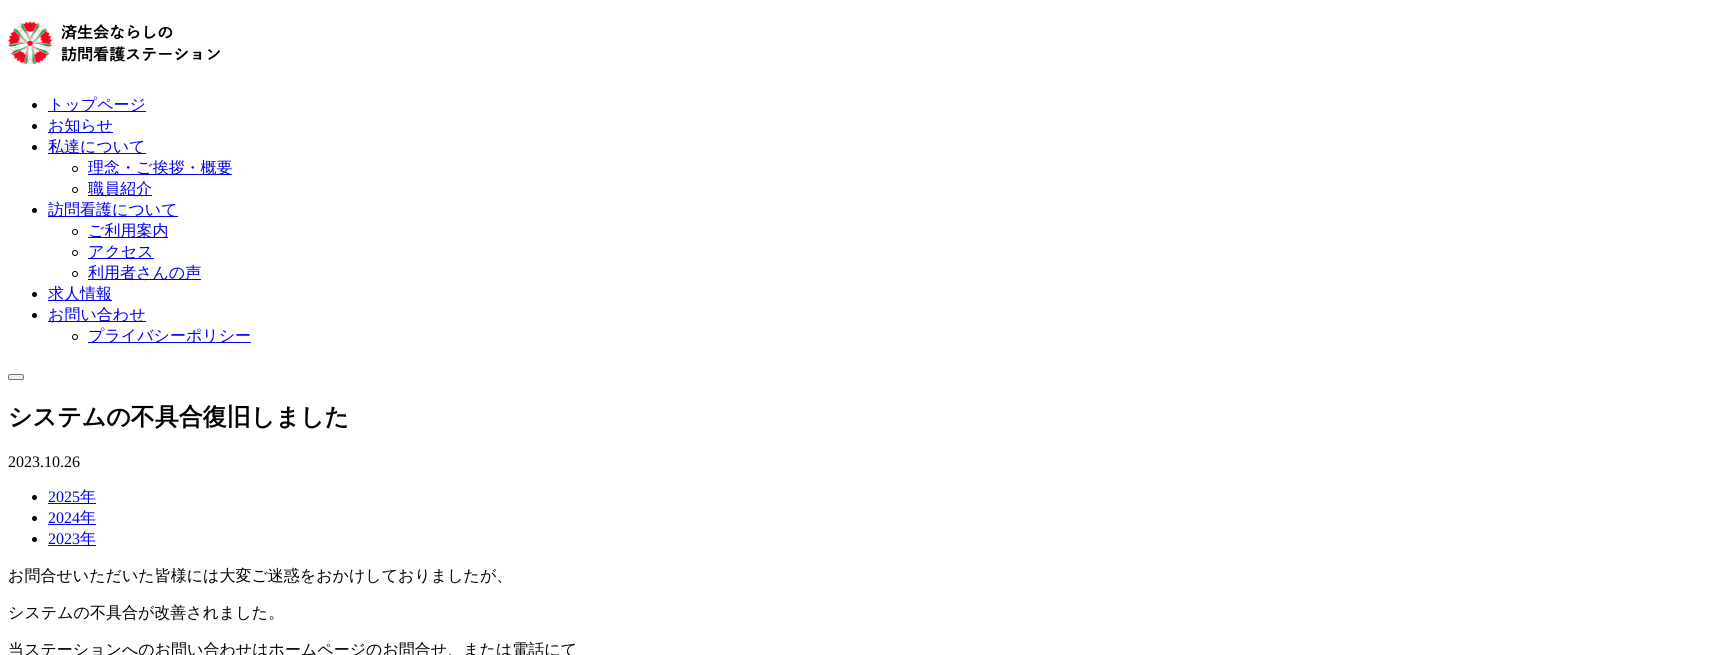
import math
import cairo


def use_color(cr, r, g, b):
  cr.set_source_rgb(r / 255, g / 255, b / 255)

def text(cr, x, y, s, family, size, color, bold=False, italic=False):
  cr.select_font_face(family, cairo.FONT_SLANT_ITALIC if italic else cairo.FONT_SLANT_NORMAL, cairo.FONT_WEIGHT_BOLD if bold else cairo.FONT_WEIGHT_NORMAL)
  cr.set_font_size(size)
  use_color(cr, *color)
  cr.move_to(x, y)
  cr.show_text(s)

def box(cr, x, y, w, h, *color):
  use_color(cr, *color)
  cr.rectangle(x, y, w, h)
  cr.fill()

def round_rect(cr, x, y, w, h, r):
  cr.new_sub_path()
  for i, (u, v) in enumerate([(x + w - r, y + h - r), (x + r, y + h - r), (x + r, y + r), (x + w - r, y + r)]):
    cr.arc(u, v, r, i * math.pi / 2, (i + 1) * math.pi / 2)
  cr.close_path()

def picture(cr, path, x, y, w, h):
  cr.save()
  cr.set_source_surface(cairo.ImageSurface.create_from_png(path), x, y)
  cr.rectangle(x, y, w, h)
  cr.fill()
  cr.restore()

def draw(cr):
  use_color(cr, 255, 255, 255)
  cr.paint()
  picture(cr, "img_01.png", 8, 21, 212, 44)
  use_color(cr, 0, 0, 0)
  cr.arc(34.5, 105.5, 2.5, 0, 2 * math.pi)
  cr.fill()
  box(cr, 48, 111, 98, 1, 0, 0, 238)
  use_color(cr, 0, 0, 0)
  cr.arc(34.5, 126.5, 2.5, 0, 2 * math.pi)
  cr.fill()
  box(cr, 48, 132, 65, 1, 0, 0, 238)
  use_color(cr, 0, 0, 0)
  cr.arc(34.5, 147.5, 2.5, 0, 2 * math.pi)
  cr.fill()
  box(cr, 48, 153, 98, 1, 0, 0, 238)
  cr.arc(75, 169, 2.5, 0, 2 * math.pi)
  use_color(cr, 0, 0, 0)
  cr.set_line_width(1)
  cr.stroke()
  box(cr, 88, 174, 144, 1, 0, 0, 238)
  cr.arc(75, 190, 2.5, 0, 2 * math.pi)
  use_color(cr, 0, 0, 0)
  cr.stroke()
  box(cr, 88, 195, 64, 1, 0, 0, 238)
  use_color(cr, 0, 0, 0)
  cr.arc(34.5, 210.5, 2.5, 0, 2 * math.pi)
  cr.fill()
  box(cr, 48, 216, 130, 1, 0, 0, 238)
  cr.arc(75, 232, 2.5, 0, 2 * math.pi)
  use_color(cr, 0, 0, 0)
  cr.stroke()
  box(cr, 88, 237, 80, 1, 0, 0, 238)
  cr.arc(75, 253, 2.5, 0, 2 * math.pi)
  use_color(cr, 0, 0, 0)
  cr.stroke()
  box(cr, 88, 258, 66, 1, 0, 0, 238)
  cr.arc(75, 274, 2.5, 0, 2 * math.pi)
  use_color(cr, 0, 0, 0)
  cr.stroke()
  box(cr, 88, 279, 113, 1, 0, 0, 238)
  use_color(cr, 0, 0, 0)
  cr.arc(34.5, 294.5, 2.5, 0, 2 * math.pi)
  cr.fill()
  box(cr, 48, 300, 64, 1, 0, 0, 238)
  use_color(cr, 0, 0, 0)
  cr.arc(34.5, 315.5, 2.5, 0, 2 * math.pi)
  cr.fill()
  box(cr, 48, 321, 98, 1, 0, 0, 238)
  cr.arc(75, 337, 2.5, 0, 2 * math.pi)
  use_color(cr, 0, 0, 0)
  cr.stroke()
  box(cr, 88, 342, 163, 1, 0, 0, 238)
  use_color(cr, 239, 239, 239)
  round_rect(cr, 8.5, 374.5, 15, 5, 1.5)
  cr.fill_preserve()
  use_color(cr, 118, 118, 118)
  cr.stroke()
  use_color(cr, 0, 0, 0)
  cr.arc(34.5, 497.5, 2.5, 0, 2 * math.pi)
  cr.fill()
  box(cr, 48, 503, 48, 1, 0, 0, 238)
  use_color(cr, 0, 0, 0)
  cr.arc(34.5, 518.5, 2.5, 0, 2 * math.pi)
  cr.fill()
  box(cr, 48, 524, 48, 1, 0, 0, 238)
  use_color(cr, 0, 0, 0)
  cr.arc(34.5, 539.5, 2.5, 0, 2 * math.pi)
  cr.fill()
  box(cr, 48, 545, 48, 1, 0, 0, 238)
  text(cr, 48, 110, "トップページ", "WenQuanYi Zen Hei Medium", 16, (0, 0, 238))
  text(cr, 48, 131, "お知らせ", "WenQuanYi Zen Hei Medium", 16, (0, 0, 238))
  text(cr, 48, 152, "私達について", "WenQuanYi Zen Hei Medium", 16, (0, 0, 238))
  text(cr, 88, 173, "理念・ご挨拶・概要", "WenQuanYi Zen Hei Medium", 16, (0, 0, 238))
  text(cr, 88, 194, "職員紹介", "WenQuanYi Zen Hei Medium", 16, (0, 0, 238))
  text(cr, 48, 215, "訪問看護について", "WenQuanYi Zen Hei Medium", 16, (0, 0, 238))
  text(cr, 88, 236, "ご利用案内", "WenQuanYi Zen Hei Medium", 16, (0, 0, 238))
  text(cr, 88, 257, "アクセス", "WenQuanYi Zen Hei Medium", 16, (0, 0, 238))
  text(cr, 88, 278, "利用者さんの声", "WenQuanYi Zen Hei Medium", 16, (0, 0, 238))
  text(cr, 48, 299, "求人情報", "WenQuanYi Zen Hei Medium", 16, (0, 0, 238))
  text(cr, 48, 320, "お問い合わせ", "WenQuanYi Zen Hei Medium", 16, (0, 0, 238))
  text(cr, 88, 341, "プライバシーポリシー", "WenQuanYi Zen Hei Medium", 16, (0, 0, 238))
  text(cr, 8, 425, "システムの不具合復旧しました", "WenQuanYi Zen Hei", 24, (0, 0, 0), bold=True)
  text(cr, 8, 467, "2023.10.26", "Liberation Serif", 16, (0, 0, 0))
  text(cr, 48, 502, "2025", "Liberation Serif", 16, (0, 0, 238))
  text(cr, 80, 502, "年", "WenQuanYi Zen Hei Medium", 16, (0, 0, 238))
  text(cr, 48, 523, "2024", "Liberation Serif", 16, (0, 0, 238))
  text(cr, 80, 523, "年", "WenQuanYi Zen Hei Medium", 16, (0, 0, 238))
  text(cr, 48, 544, "2023", "Liberation Serif", 16, (0, 0, 238))
  text(cr, 80, 544, "年", "WenQuanYi Zen Hei Medium", 16, (0, 0, 238))
  text(cr, 8, 581, "お問合せいただいた皆様には大変ご迷惑をおかけしておりましたが、", "WenQuanYi Zen Hei Medium", 16, (0, 0, 0))
  text(cr, 8, 618, "システムの不具合が改善されました。", "WenQuanYi Zen Hei Medium", 16, (0, 0, 0))
  text(cr, 8, 655, "当ステーションへのお問い合わせはホームページのお問合せ、または電話にて", "WenQuanYi Zen Hei Medium", 16, (0, 0, 0))


surface = cairo.ImageSurface(cairo.FORMAT_RGB24, 1724, 655)
cr = cairo.Context(surface)
options = cairo.FontOptions()
options.set_hint_metrics(cairo.HINT_METRICS_OFF)
options.set_hint_style(cairo.HINT_STYLE_NONE)
cr.set_font_options(options)
cr.set_miter_limit(4)
draw(cr)
surface.write_to_png("out.png")
